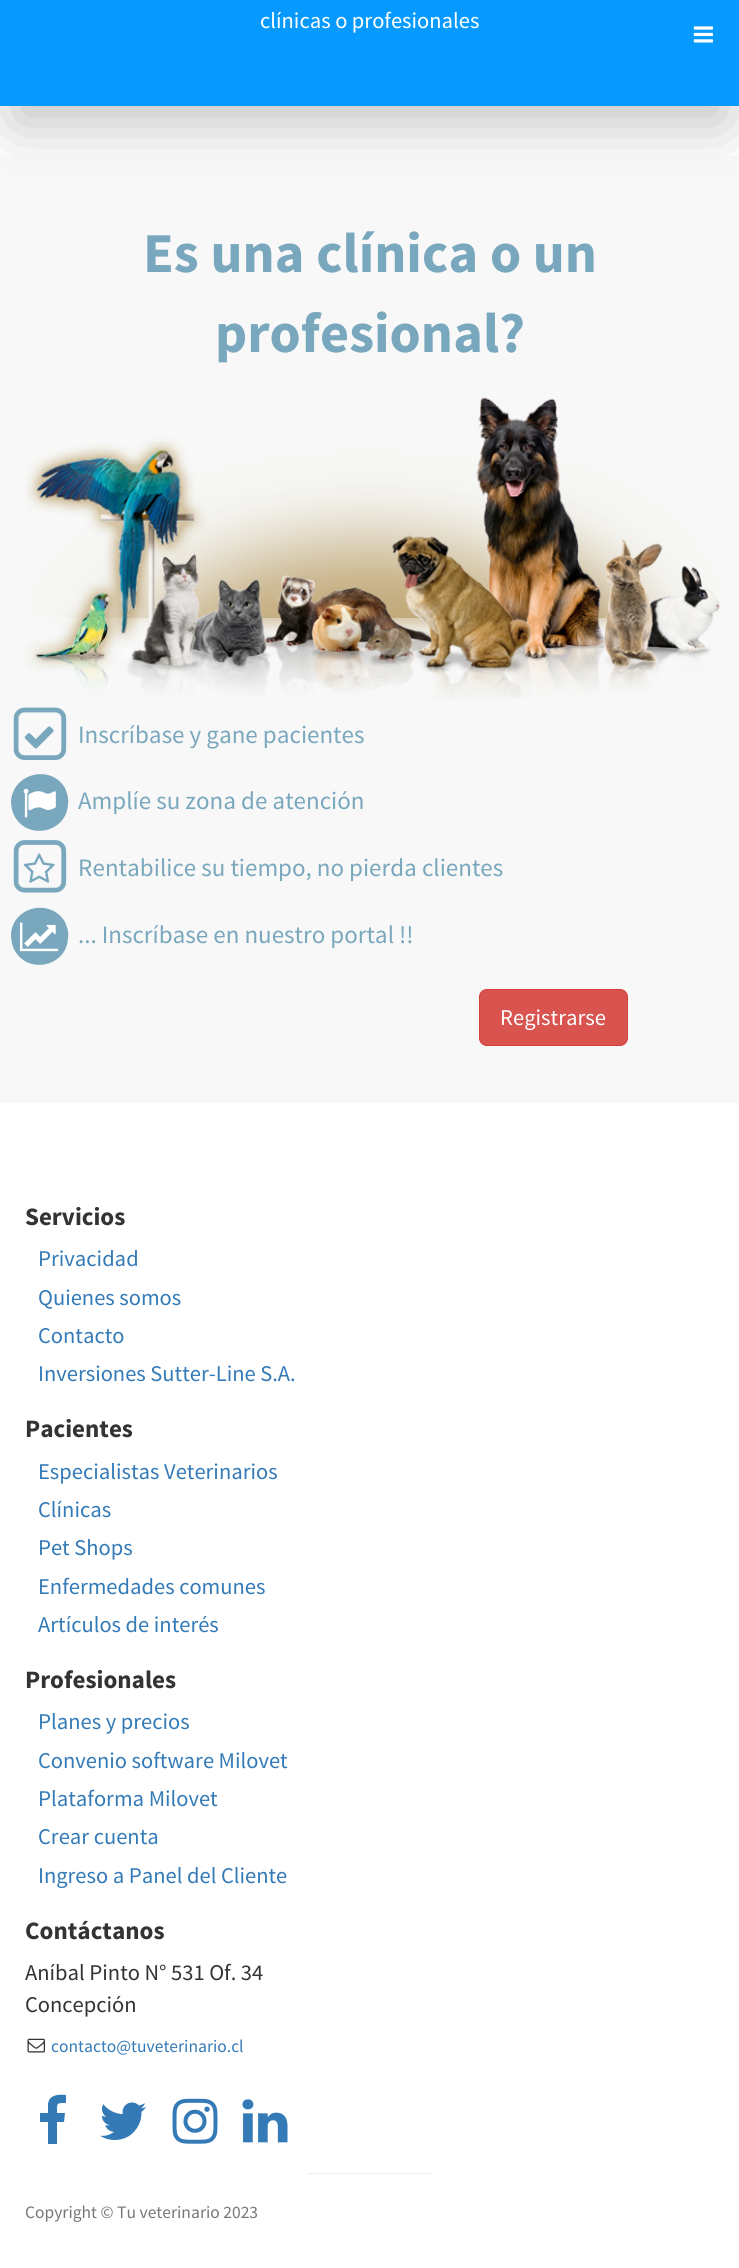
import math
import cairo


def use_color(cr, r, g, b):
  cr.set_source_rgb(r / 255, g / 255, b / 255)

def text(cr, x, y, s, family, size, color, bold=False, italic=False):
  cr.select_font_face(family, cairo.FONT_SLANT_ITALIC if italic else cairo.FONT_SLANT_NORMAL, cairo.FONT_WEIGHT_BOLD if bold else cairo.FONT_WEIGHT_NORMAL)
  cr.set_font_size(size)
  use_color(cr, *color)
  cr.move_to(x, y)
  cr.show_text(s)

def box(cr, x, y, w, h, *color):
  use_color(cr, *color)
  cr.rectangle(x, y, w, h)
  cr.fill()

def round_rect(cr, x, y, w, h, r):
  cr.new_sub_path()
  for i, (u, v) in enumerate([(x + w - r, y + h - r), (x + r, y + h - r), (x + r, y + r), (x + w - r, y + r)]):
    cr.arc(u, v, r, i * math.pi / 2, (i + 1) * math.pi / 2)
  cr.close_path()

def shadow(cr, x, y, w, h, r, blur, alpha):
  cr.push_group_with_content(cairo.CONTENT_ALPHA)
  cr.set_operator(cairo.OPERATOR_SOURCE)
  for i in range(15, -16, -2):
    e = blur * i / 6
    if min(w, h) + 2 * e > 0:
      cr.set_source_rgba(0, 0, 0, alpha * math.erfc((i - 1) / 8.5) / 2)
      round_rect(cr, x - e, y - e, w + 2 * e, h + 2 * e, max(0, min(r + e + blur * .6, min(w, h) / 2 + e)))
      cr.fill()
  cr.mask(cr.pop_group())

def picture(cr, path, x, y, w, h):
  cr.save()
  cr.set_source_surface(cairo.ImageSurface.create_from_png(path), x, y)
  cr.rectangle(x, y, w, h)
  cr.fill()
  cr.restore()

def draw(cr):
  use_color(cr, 255, 255, 255)
  cr.paint()
  use_color(cr, 0, 0, 0)
  shadow(cr, 15, -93, 710, 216, 0, 31, 0.25)
  box(cr, 0, 0, 739, 106, 6, 154, 255)
  picture(cr, "img_01.png", 693, 26, 21, 17)
  cr.set_source_rgba(0.941, 0.949, 0.941, 0.52)
  cr.rectangle(0, 156, 739, 947)
  cr.fill()
  picture(cr, "img_02.png", 25, 397, 696, 303)
  picture(cr, "img_03.png", 13, 707, 54, 53)
  picture(cr, "img_04.png", 24, 726, 30, 23)
  use_color(cr, 121, 167, 189)
  cr.new_path()
  cr.move_to(65, 788)
  cr.curve_to(67, 793, 69, 799, 68, 804)
  cr.curve_to(67, 832, 29, 841, 15, 817)
  cr.curve_to(12, 812, 11, 806, 11, 801)
  cr.curve_to(13, 773, 51, 764, 65, 788)
  cr.close_path()
  cr.fill()
  picture(cr, "img_05.png", 23, 788, 33, 30)
  picture(cr, "img_06.png", 13, 840, 54, 53)
  picture(cr, "img_07.png", 23, 853, 32, 30)
  cr.new_path()
  cr.move_to(65, 922)
  cr.curve_to(67, 927, 69, 932, 68, 938)
  cr.curve_to(67, 966, 29, 975, 15, 951)
  cr.curve_to(12, 946, 11, 940, 11, 934)
  cr.curve_to(13, 906, 51, 898, 65, 922)
  cr.close_path()
  cr.fill()
  picture(cr, "img_08.png", 20, 922, 39, 30)
  use_color(cr, 217, 83, 79)
  round_rect(cr, 479.5, 989.5, 148, 56, 7.5)
  cr.fill_preserve()
  use_color(cr, 212, 63, 58)
  cr.set_line_width(1)
  cr.stroke()
  picture(cr, "img_09.png", 27, 2038, 18, 15)
  use_color(cr, 51, 122, 183)
  cr.new_path()
  cr.move_to(66, 2095)
  cr.line_to(66, 2103)
  cr.curve_to(56, 2103, 57, 2103, 57, 2113)
  cr.line_to(65, 2113)
  cr.line_to(64, 2122)
  cr.line_to(57, 2122)
  cr.line_to(57, 2144)
  cr.line_to(48, 2144)
  cr.line_to(48, 2122)
  cr.line_to(40, 2122)
  cr.line_to(40, 2113)
  cr.line_to(48, 2113)
  cr.line_to(48, 2104)
  cr.curve_to(49, 2095, 58, 2094, 66, 2095)
  cr.close_path()
  cr.fill()
  picture(cr, "img_10.png", 100, 2102, 46, 38)
  picture(cr, "img_11.png", 172, 2098, 46, 46)
  picture(cr, "img_12.png", 242, 2099, 46, 44)
  box(cr, 308, 2173, 125, 1, 238, 238, 238)
  text(cr, 260, 28, "clínicas o profesionales", "Source Sans Pro", 22.5, (255, 255, 255))
  text(cr, 143, 272, "Es una clínica o un", "Source Sans Pro", 56.25, (121, 167, 189), bold=True)
  text(cr, 215, 352, "profesional?", "Source Sans Pro", 56.25, (121, 167, 189), bold=True)
  text(cr, 78, 743, "Inscríbase y gane pacientes", "Source Sans Pro", 25, (121, 167, 189))
  text(cr, 78, 809, "Amplíe su zona de atención", "Source Sans Pro", 25, (121, 167, 189))
  text(cr, 78, 876, "Rentabilice su tiempo, no pierda clientes", "Source Sans Pro", 25, (121, 167, 189))
  text(cr, 78, 943, "... Inscríbase en nuestro portal !!", "Source Sans Pro", 25, (121, 167, 189))
  text(cr, 500, 1025, "Registrarse", "Source Sans Pro", 22.5, (255, 255, 255))
  text(cr, 25, 1225, "Servicios", "Source Sans Pro", 25, (51, 51, 51), bold=True)
  text(cr, 38, 1266, "Privacidad", "Source Sans Pro", 22.5, (51, 122, 183))
  text(cr, 38, 1305, "Quienes somos", "Source Sans Pro", 22.5, (51, 122, 183))
  text(cr, 38, 1343, "Contacto", "Source Sans Pro", 22.5, (51, 122, 183))
  text(cr, 38, 1381, "Inversiones Sutter-Line S.A.", "Source Sans Pro", 22.5, (51, 122, 183))
  text(cr, 25, 1437, "Pacientes", "Source Sans Pro", 25, (51, 51, 51), bold=True)
  text(cr, 38, 1479, "Especialistas Veterinarios", "Source Sans Pro", 22.5, (51, 122, 183))
  text(cr, 38, 1517, "Clínicas", "Source Sans Pro", 22.5, (51, 122, 183))
  text(cr, 38, 1555, "Pet Shops", "Source Sans Pro", 22.5, (51, 122, 183))
  text(cr, 38, 1594, "Enfermedades comunes", "Source Sans Pro", 22.5, (51, 122, 183))
  text(cr, 38, 1632, "Artículos de interés", "Source Sans Pro", 22.5, (51, 122, 183))
  text(cr, 25, 1688, "Profesionales", "Source Sans Pro", 25, (51, 51, 51), bold=True)
  text(cr, 38, 1729, "Planes y precios", "Source Sans Pro", 22.5, (51, 122, 183))
  text(cr, 38, 1768, "Convenio software Milovet", "Source Sans Pro", 22.5, (51, 122, 183))
  text(cr, 38, 1806, "Plataforma Milovet", "Source Sans Pro", 22.5, (51, 122, 183))
  text(cr, 38, 1844, "Crear cuenta", "Source Sans Pro", 22.5, (51, 122, 183))
  text(cr, 38, 1883, "Ingreso a Panel del Cliente", "Source Sans Pro", 22.5, (51, 122, 183))
  text(cr, 25, 1939, "Contáctanos", "Source Sans Pro", 25, (51, 51, 51), bold=True)
  text(cr, 25, 1980, "Aníbal Pinto N° 531 Of. 34", "Source Sans Pro", 22.5, (51, 51, 51))
  text(cr, 25, 2012, "Concepción", "Source Sans Pro", 22.5, (51, 51, 51))
  text(cr, 51, 2052, "contacto@tuveterinario.cl", "Source Sans Pro", 17.5, (51, 122, 183))
  text(cr, 25, 2218, "Copyright © Tu veterinario 2023", "Source Sans Pro", 17.5, (119, 119, 119))


surface = cairo.ImageSurface(cairo.FORMAT_RGB24, 739, 2268)
cr = cairo.Context(surface)
options = cairo.FontOptions()
options.set_hint_metrics(cairo.HINT_METRICS_OFF)
options.set_hint_style(cairo.HINT_STYLE_NONE)
cr.set_font_options(options)
cr.set_miter_limit(4)
draw(cr)
surface.write_to_png("out.png")
